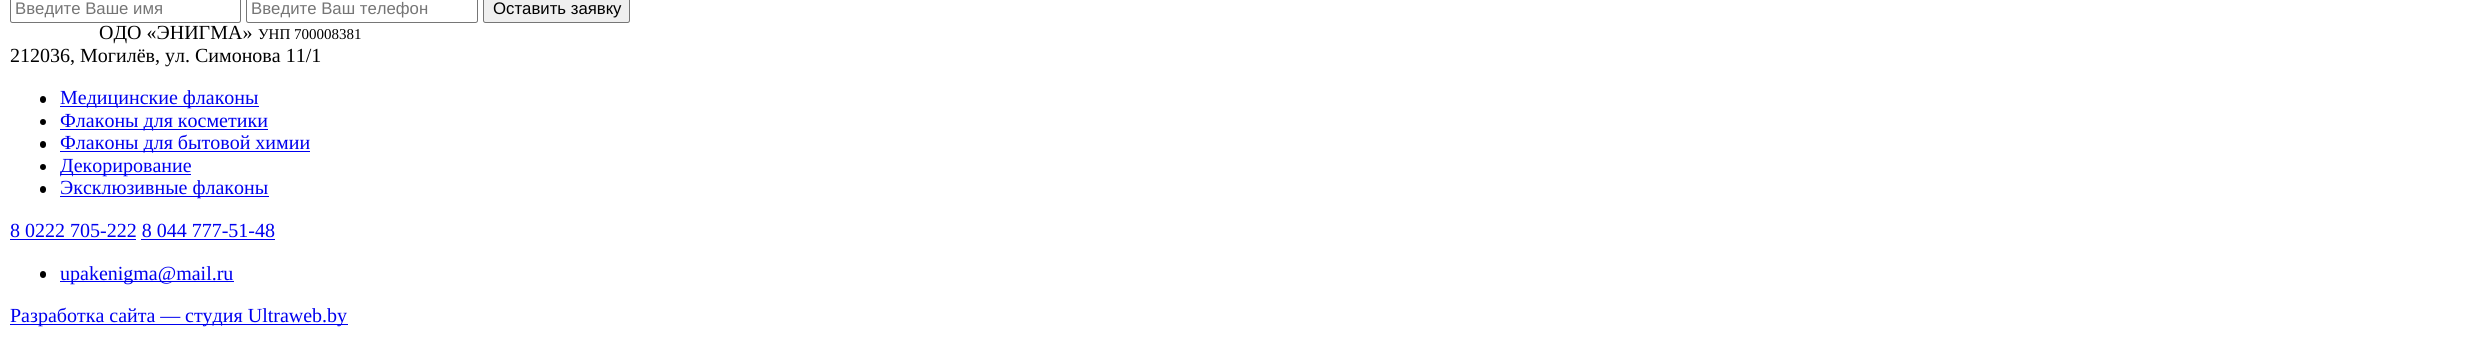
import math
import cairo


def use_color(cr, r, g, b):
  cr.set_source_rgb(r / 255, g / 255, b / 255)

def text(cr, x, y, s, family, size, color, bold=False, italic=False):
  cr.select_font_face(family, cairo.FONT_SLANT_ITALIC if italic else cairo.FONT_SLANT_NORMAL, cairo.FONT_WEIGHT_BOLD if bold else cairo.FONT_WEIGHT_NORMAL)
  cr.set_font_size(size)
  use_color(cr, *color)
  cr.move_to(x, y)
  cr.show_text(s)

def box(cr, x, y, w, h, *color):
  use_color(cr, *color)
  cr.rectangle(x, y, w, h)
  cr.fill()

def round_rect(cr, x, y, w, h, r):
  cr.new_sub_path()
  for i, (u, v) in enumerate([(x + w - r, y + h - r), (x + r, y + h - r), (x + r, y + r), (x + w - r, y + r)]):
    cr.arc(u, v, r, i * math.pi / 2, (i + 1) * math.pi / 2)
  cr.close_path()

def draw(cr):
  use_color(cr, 255, 255, 255)
  cr.paint()
  round_rect(cr, 10.5, -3.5, 230, 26, 2)
  use_color(cr, 118, 118, 118)
  cr.set_line_width(1)
  cr.stroke()
  round_rect(cr, 246.5, -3.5, 231, 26, 2)
  cr.stroke()
  use_color(cr, 239, 239, 239)
  round_rect(cr, 483.5, -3.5, 146, 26, 2)
  cr.fill_preserve()
  use_color(cr, 118, 118, 118)
  cr.stroke()
  use_color(cr, 0, 0, 0)
  round_rect(cr, 40, 96, 6, 7, 3)
  cr.fill()
  box(cr, 60, 106, 199, 1, 0, 0, 238)
  use_color(cr, 0, 0, 0)
  cr.arc(43, 122, 3, 0, 2 * math.pi)
  cr.fill()
  box(cr, 60, 129, 208, 1, 0, 0, 238)
  use_color(cr, 0, 0, 0)
  round_rect(cr, 40, 141, 6, 7, 3)
  cr.fill()
  box(cr, 60, 151, 250, 1, 0, 0, 238)
  use_color(cr, 0, 0, 0)
  cr.arc(43, 167, 3, 0, 2 * math.pi)
  cr.fill()
  box(cr, 60, 174, 131, 1, 0, 0, 238)
  use_color(cr, 0, 0, 0)
  round_rect(cr, 40, 186, 6, 7, 3)
  cr.fill()
  box(cr, 60, 196, 209, 1, 0, 0, 238)
  box(cr, 10, 239, 126, 1, 0, 0, 238)
  box(cr, 141, 239, 134, 1, 0, 0, 238)
  use_color(cr, 0, 0, 0)
  round_rect(cr, 40, 271, 6, 7, 3)
  cr.fill()
  box(cr, 60, 281, 174, 1, 0, 0, 238)
  box(cr, 10, 324, 170, 1, 0, 0, 238)
  box(cr, 180, 324, 168, 1, 0, 0, 238)
  text(cr, 15, 14, "Введите Ваше имя", "Liberation Sans", 16.75, (117, 117, 117))
  text(cr, 251, 14, "Введите Ваш телефон", "Liberation Sans", 16.75, (117, 117, 117))
  text(cr, 493, 14, "Оставить заявку", "Liberation Sans", 16.75, (0, 0, 0))
  text(cr, 99, 39, "ОДО «ЭНИГМА»", "Liberation Serif", 20, (0, 0, 0))
  text(cr, 258, 39, "УНП 700008381", "Liberation Serif", 15, (0, 0, 0))
  text(cr, 10, 62, "212036, Могилёв, ул. Симонова 11/1", "Liberation Serif", 20, (0, 0, 0))
  text(cr, 60, 104, "Медицинские флаконы", "Liberation Serif", 20, (0, 0, 238))
  text(cr, 60, 127, "Флаконы для косметики", "Liberation Serif", 20, (0, 0, 238))
  text(cr, 60, 149, "Флаконы для бытовой химии", "Liberation Serif", 20, (0, 0, 238))
  text(cr, 60, 172, "Декорирование", "Liberation Serif", 20, (0, 0, 238))
  text(cr, 60, 194, "Эксклюзивные флаконы", "Liberation Serif", 20, (0, 0, 238))
  text(cr, 10, 237, "8 0222 705-222 8 044 777-51-48", "Liberation Serif", 20, (0, 0, 238))
  text(cr, 60, 280, "upakenigma@mail.ru", "Liberation Serif", 20, (0, 0, 238))
  text(cr, 10, 322, "Разработка сайта —", "Liberation Serif", 20, (0, 0, 238))
  text(cr, 185, 322, "студия Ultraweb.by", "Liberation Serif", 20, (0, 0, 238))


surface = cairo.ImageSurface(cairo.FORMAT_RGB24, 2485, 337)
cr = cairo.Context(surface)
options = cairo.FontOptions()
options.set_hint_metrics(cairo.HINT_METRICS_OFF)
options.set_hint_style(cairo.HINT_STYLE_NONE)
cr.set_font_options(options)
cr.set_miter_limit(4)
draw(cr)
surface.write_to_png("out.png")
